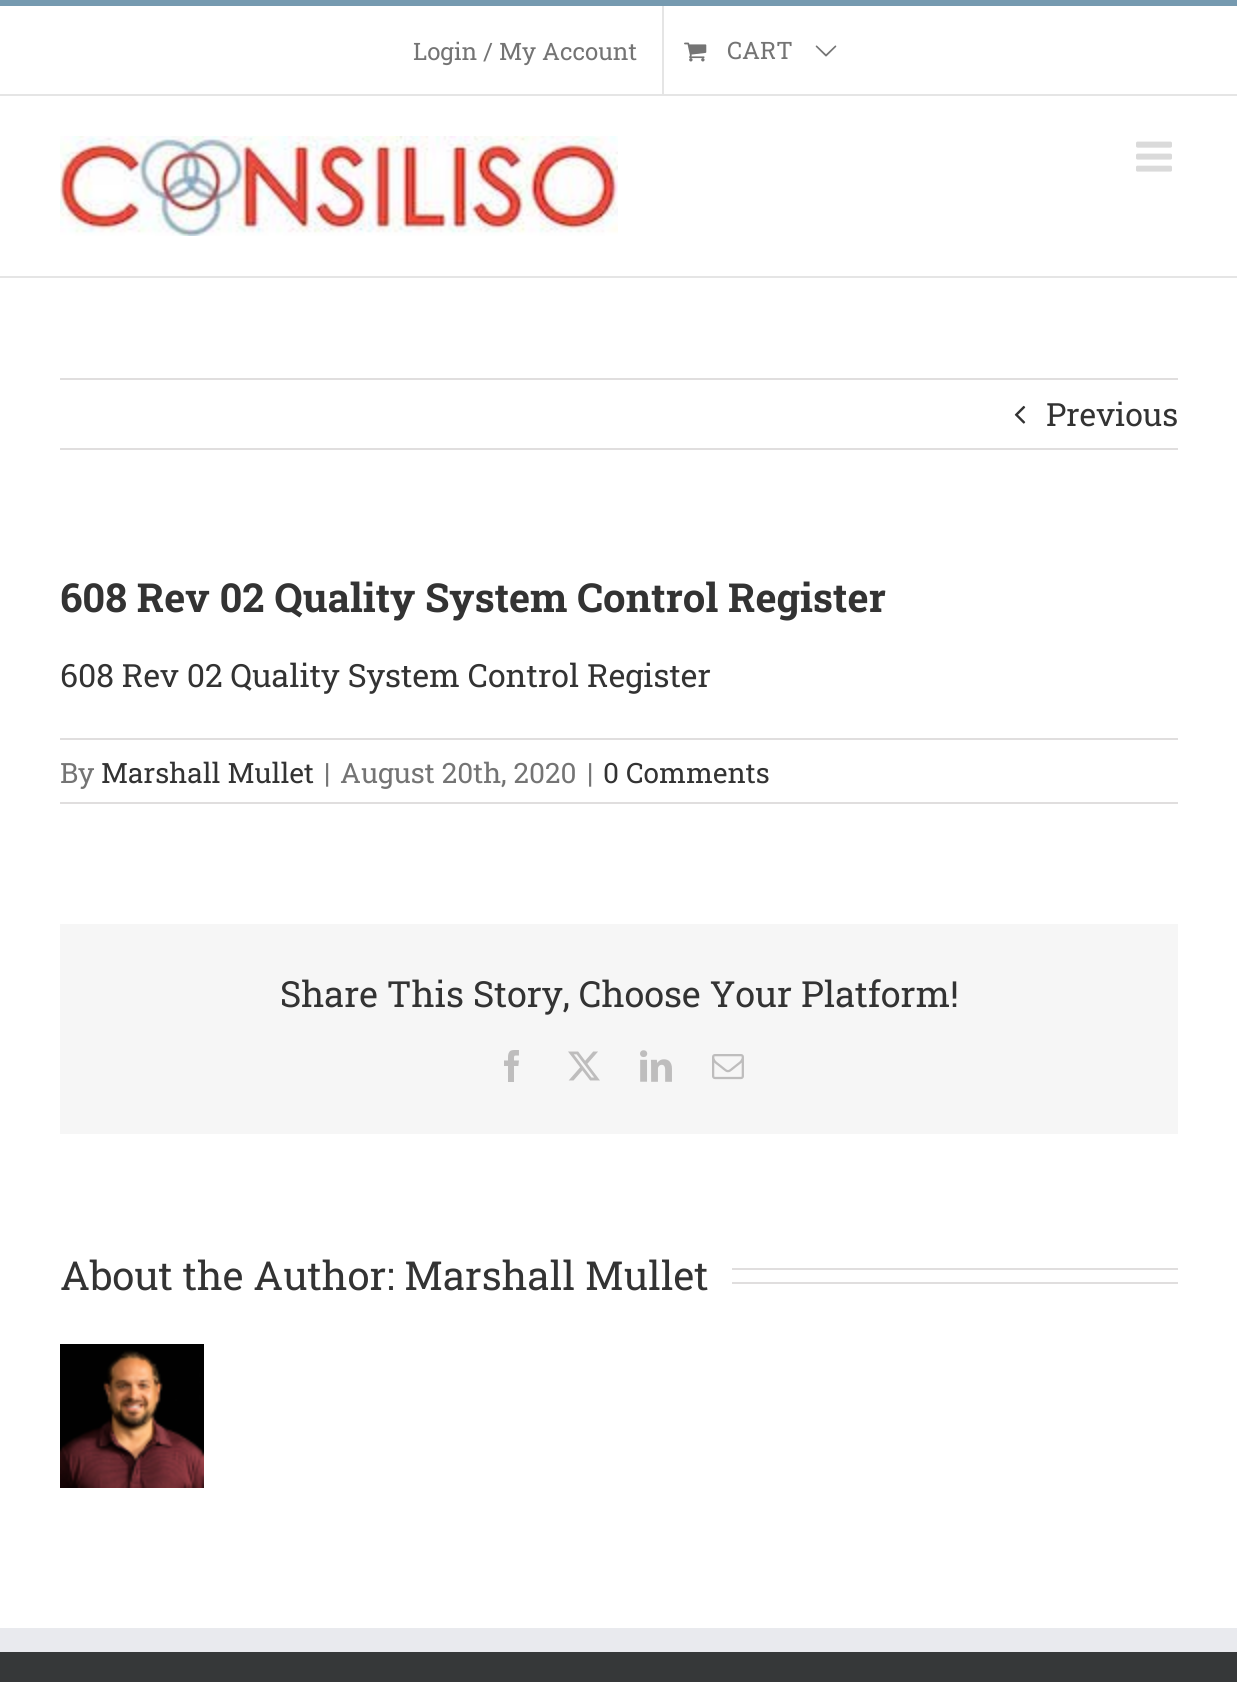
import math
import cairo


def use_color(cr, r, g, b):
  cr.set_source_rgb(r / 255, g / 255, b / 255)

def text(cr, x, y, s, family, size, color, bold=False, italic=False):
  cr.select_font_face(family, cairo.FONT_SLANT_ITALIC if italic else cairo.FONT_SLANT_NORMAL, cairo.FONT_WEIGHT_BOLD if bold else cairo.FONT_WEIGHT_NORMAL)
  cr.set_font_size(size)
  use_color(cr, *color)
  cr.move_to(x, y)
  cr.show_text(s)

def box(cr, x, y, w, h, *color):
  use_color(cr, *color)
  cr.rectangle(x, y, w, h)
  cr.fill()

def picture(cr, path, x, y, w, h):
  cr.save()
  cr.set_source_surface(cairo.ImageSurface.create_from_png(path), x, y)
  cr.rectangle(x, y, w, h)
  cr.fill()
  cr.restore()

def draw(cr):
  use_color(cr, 255, 255, 255)
  cr.paint()
  box(cr, 0, 0, 1237, 6, 118, 154, 176)
  box(cr, 0, 94, 1237, 2, 229, 229, 229)
  box(cr, 662, 6, 2, 88, 229, 229, 229)
  picture(cr, "img_01.png", 684, 42, 23, 20)
  picture(cr, "img_02.png", 815, 45, 22, 12)
  box(cr, 0, 276, 1237, 2, 229, 229, 229)
  picture(cr, "img_03.png", 60, 136, 558, 100)
  picture(cr, "img_04.png", 1136, 141, 36, 31)
  box(cr, 60, 378, 1118, 2, 224, 222, 222)
  box(cr, 60, 448, 1118, 2, 224, 222, 222)
  picture(cr, "img_05.png", 1014, 405, 12, 19)
  box(cr, 60, 738, 1118, 2, 224, 222, 222)
  box(cr, 60, 802, 1118, 2, 224, 222, 222)
  box(cr, 60, 924, 1118, 210, 246, 246, 246)
  picture(cr, "img_06.png", 504, 1050, 15, 32)
  picture(cr, "img_07.png", 568, 1051, 32, 30)
  picture(cr, "img_08.png", 640, 1050, 32, 32)
  picture(cr, "img_09.png", 712, 1054, 32, 26)
  box(cr, 732, 1268, 446, 2, 224, 222, 222)
  box(cr, 732, 1282, 446, 2, 224, 222, 222)
  picture(cr, "img_10.png", 60, 1344, 144, 144)
  box(cr, 0, 1652, 1237, 30, 54, 56, 57)
  box(cr, 0, 1628, 1237, 24, 233, 234, 238)
  text(cr, 413, 60, "Login / My Account", "Roboto Slab", 24, (116, 116, 116))
  text(cr, 727, 59, "CART", "Roboto Slab", 24, (116, 116, 116))
  text(cr, 1046, 426, "Previous", "Roboto Slab", 32, (51, 51, 51))
  text(cr, 60, 612, "608 Rev 02 Quality System Control Register", "Roboto Slab", 40, (51, 51, 51), bold=True)
  text(cr, 60, 687, "608 Rev 02 Quality System Control Register", "Roboto Slab", 32, (51, 51, 51))
  text(cr, 60, 783, "By", "Roboto Slab", 28, (116, 116, 116))
  text(cr, 101, 783, "Marshall Mullet", "Roboto Slab", 28, (51, 51, 51))
  text(cr, 324, 783, "|", "Roboto Slab", 28, (116, 116, 116))
  text(cr, 340, 783, "August 20th, 2020", "Roboto Slab", 28, (116, 116, 116))
  text(cr, 587, 783, "|", "Roboto Slab", 28, (116, 116, 116))
  text(cr, 603, 783, "0 Comments", "Roboto Slab", 28, (51, 51, 51))
  text(cr, 280, 1007, "Share This Story, Choose Your Platform!", "Roboto Slab", 36, (51, 51, 51))
  text(cr, 60, 1290, "About the Author: Marshall Mullet", "Roboto Slab", 40, (51, 51, 51))


surface = cairo.ImageSurface(cairo.FORMAT_RGB24, 1237, 1682)
cr = cairo.Context(surface)
options = cairo.FontOptions()
options.set_hint_metrics(cairo.HINT_METRICS_OFF)
options.set_hint_style(cairo.HINT_STYLE_NONE)
cr.set_font_options(options)
cr.set_miter_limit(4)
draw(cr)
surface.write_to_png("out.png")
